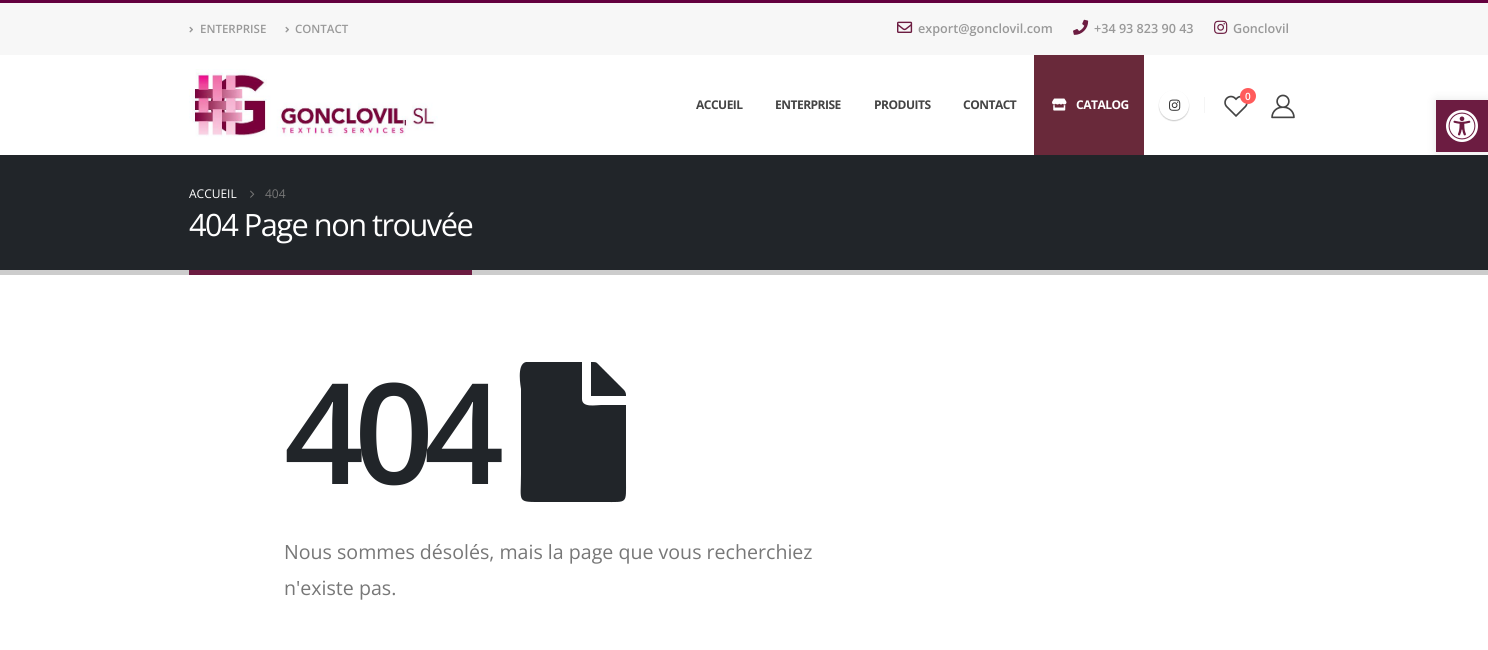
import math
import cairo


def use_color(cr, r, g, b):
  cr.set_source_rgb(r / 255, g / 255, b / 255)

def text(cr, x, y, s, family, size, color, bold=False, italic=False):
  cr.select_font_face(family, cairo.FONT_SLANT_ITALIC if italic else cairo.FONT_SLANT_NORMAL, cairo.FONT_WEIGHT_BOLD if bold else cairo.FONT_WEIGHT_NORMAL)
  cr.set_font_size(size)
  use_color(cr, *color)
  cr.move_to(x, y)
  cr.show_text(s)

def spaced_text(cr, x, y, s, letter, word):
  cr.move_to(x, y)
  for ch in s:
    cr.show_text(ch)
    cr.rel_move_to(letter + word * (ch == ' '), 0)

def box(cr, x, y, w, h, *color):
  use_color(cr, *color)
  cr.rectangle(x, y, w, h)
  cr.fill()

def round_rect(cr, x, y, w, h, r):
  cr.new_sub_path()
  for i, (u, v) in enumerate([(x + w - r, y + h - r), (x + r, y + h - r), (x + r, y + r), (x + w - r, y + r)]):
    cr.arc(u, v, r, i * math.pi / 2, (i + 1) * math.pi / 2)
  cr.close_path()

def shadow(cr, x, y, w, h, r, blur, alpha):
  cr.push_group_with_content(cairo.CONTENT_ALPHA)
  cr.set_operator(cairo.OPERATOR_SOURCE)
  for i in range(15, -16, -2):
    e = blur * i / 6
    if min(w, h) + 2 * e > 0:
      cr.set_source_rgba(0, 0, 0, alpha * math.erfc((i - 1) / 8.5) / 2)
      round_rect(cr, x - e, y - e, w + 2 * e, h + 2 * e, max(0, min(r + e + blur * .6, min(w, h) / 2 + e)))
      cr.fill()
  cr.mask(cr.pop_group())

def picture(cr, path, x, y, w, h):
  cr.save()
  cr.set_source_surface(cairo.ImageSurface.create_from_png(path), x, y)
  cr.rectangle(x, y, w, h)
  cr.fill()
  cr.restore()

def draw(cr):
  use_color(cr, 255, 255, 255)
  cr.paint()
  box(cr, 0, 0, 1488, 3, 100, 0, 63)
  box(cr, 0, 3, 1488, 52, 247, 247, 247)
  picture(cr, "img_01.png", 189, 26, 4, 7)
  picture(cr, "img_01.png", 285, 26, 4, 7)
  picture(cr, "img_02.png", 897, 21, 16, 12)
  picture(cr, "img_03.png", 1073, 19, 16, 16)
  picture(cr, "img_04.png", 1214, 20, 14, 14)
  picture(cr, "img_05.png", 189, 69, 249, 68)
  box(cr, 1034, 55, 110, 100, 105, 41, 58)
  picture(cr, "img_06.png", 1052, 98, 15, 13)
  use_color(cr, 0, 0, 0)
  shadow(cr, 1159, 91, 30, 30, 15, 0.5, 0.2)
  use_color(cr, 255, 255, 255)
  cr.arc(1174, 105, 15, 0, 2 * math.pi)
  cr.fill()
  picture(cr, "img_07.png", 1169, 99, 12, 12)
  box(cr, 1204, 97, 1, 16, 245, 245, 245)
  picture(cr, "img_08.png", 1224, 95, 24, 22)
  use_color(cr, 255, 91, 91)
  cr.arc(1248, 96, 8, 0, 2 * math.pi)
  cr.fill()
  picture(cr, "img_09.png", 1271, 94, 24, 25)
  box(cr, 0, 155, 1488, 115, 33, 37, 41)
  box(cr, 0, 270, 1488, 5, 204, 204, 204)
  picture(cr, "img_10.png", 250, 190, 5, 8)
  box(cr, 189, 270, 283, 5, 108, 28, 65)
  use_color(cr, 33, 37, 41)
  cr.new_path()
  cr.move_to(582, 399)
  cr.curve_to(582, 408, 596, 405, 601, 405)
  cr.line_to(626, 405)
  cr.line_to(626, 480)
  cr.curve_to(626, 504, 628, 502, 604, 502)
  cr.line_to(543, 502)
  cr.curve_to(516, 502, 521, 503, 521, 474)
  cr.line_to(521, 389)
  cr.curve_to(521, 388, 516, 364, 526, 362)
  cr.line_to(582, 362)
  cr.close_path()
  cr.move_to(626, 395)
  cr.line_to(626, 396)
  cr.line_to(591, 396)
  cr.line_to(591, 362)
  cr.line_to(593, 362)
  cr.curve_to(594, 362, 596, 362, 597, 363)
  cr.line_to(624, 390)
  cr.curve_to(625, 391, 626, 393, 626, 395)
  cr.close_path()
  cr.fill()
  use_color(cr, 0, 0, 0)
  shadow(cr, 1436, 100, 52, 52, 0, 5, 0.1)
  box(cr, 1436, 100, 52, 52, 108, 28, 65)
  picture(cr, "img_11.png", 1446, 110, 32, 32)
  text(cr, 200, 33, "ENTERPRISE", "Open Sans SemiBold", 11.5, (153, 153, 153))
  text(cr, 295, 33, "CONTACT", "Open Sans SemiBold", 11.5, (153, 153, 153))
  text(cr, 918, 33, "export@gonclovil.com", "Open Sans SemiBold", 12.6, (153, 153, 153))
  text(cr, 1094, 33, "+34 93 823 90 43", "Open Sans SemiBold", 12.6, (153, 153, 153))
  text(cr, 1233, 33, "Gonclovil", "Open Sans SemiBold", 12.6, (153, 153, 153))
  cr.select_font_face("Open Sans", cairo.FONT_SLANT_NORMAL, cairo.FONT_WEIGHT_BOLD)
  cr.set_font_size(12)
  use_color(cr, 68, 68, 68)
  spaced_text(cr, 696, 109, "ACCUEIL", -0.5, 0)
  spaced_text(cr, 775, 109, "ENTERPRISE", -0.5, 0)
  spaced_text(cr, 874, 109, "PRODUITS", -0.5, 0)
  spaced_text(cr, 963, 109, "CONTACT", -0.5, 0)
  use_color(cr, 255, 255, 255)
  spaced_text(cr, 1076, 109, "CATALOG", -0.5, 0)
  text(cr, 1245, 100, "0", "Open Sans SemiBold", 10, (255, 255, 255))
  text(cr, 189, 198, "ACCUEIL", "Open Sans", 12, (255, 255, 255))
  text(cr, 265, 198, "404", "Open Sans", 12, (119, 119, 119))
  cr.set_font_size(30.75)
  use_color(cr, 255, 255, 255)
  spaced_text(cr, 189, 236, "404 Page non trouvée", -1.5, 0)
  cr.select_font_face("Open Sans SemiBold")
  cr.set_font_size(140)
  use_color(cr, 33, 37, 41)
  spaced_text(cr, 284, 484, "404", -10, 0)
  text(cr, 284, 559, "Nous sommes désolés, mais la page que vous recherchiez", "Open Sans", 19.6, (119, 119, 119))
  text(cr, 284, 595, "n'existe pas.", "Open Sans", 19.6, (119, 119, 119))


surface = cairo.ImageSurface(cairo.FORMAT_RGB24, 1488, 650)
cr = cairo.Context(surface)
options = cairo.FontOptions()
options.set_hint_metrics(cairo.HINT_METRICS_OFF)
options.set_hint_style(cairo.HINT_STYLE_NONE)
cr.set_font_options(options)
cr.set_miter_limit(4)
draw(cr)
surface.write_to_png("out.png")
